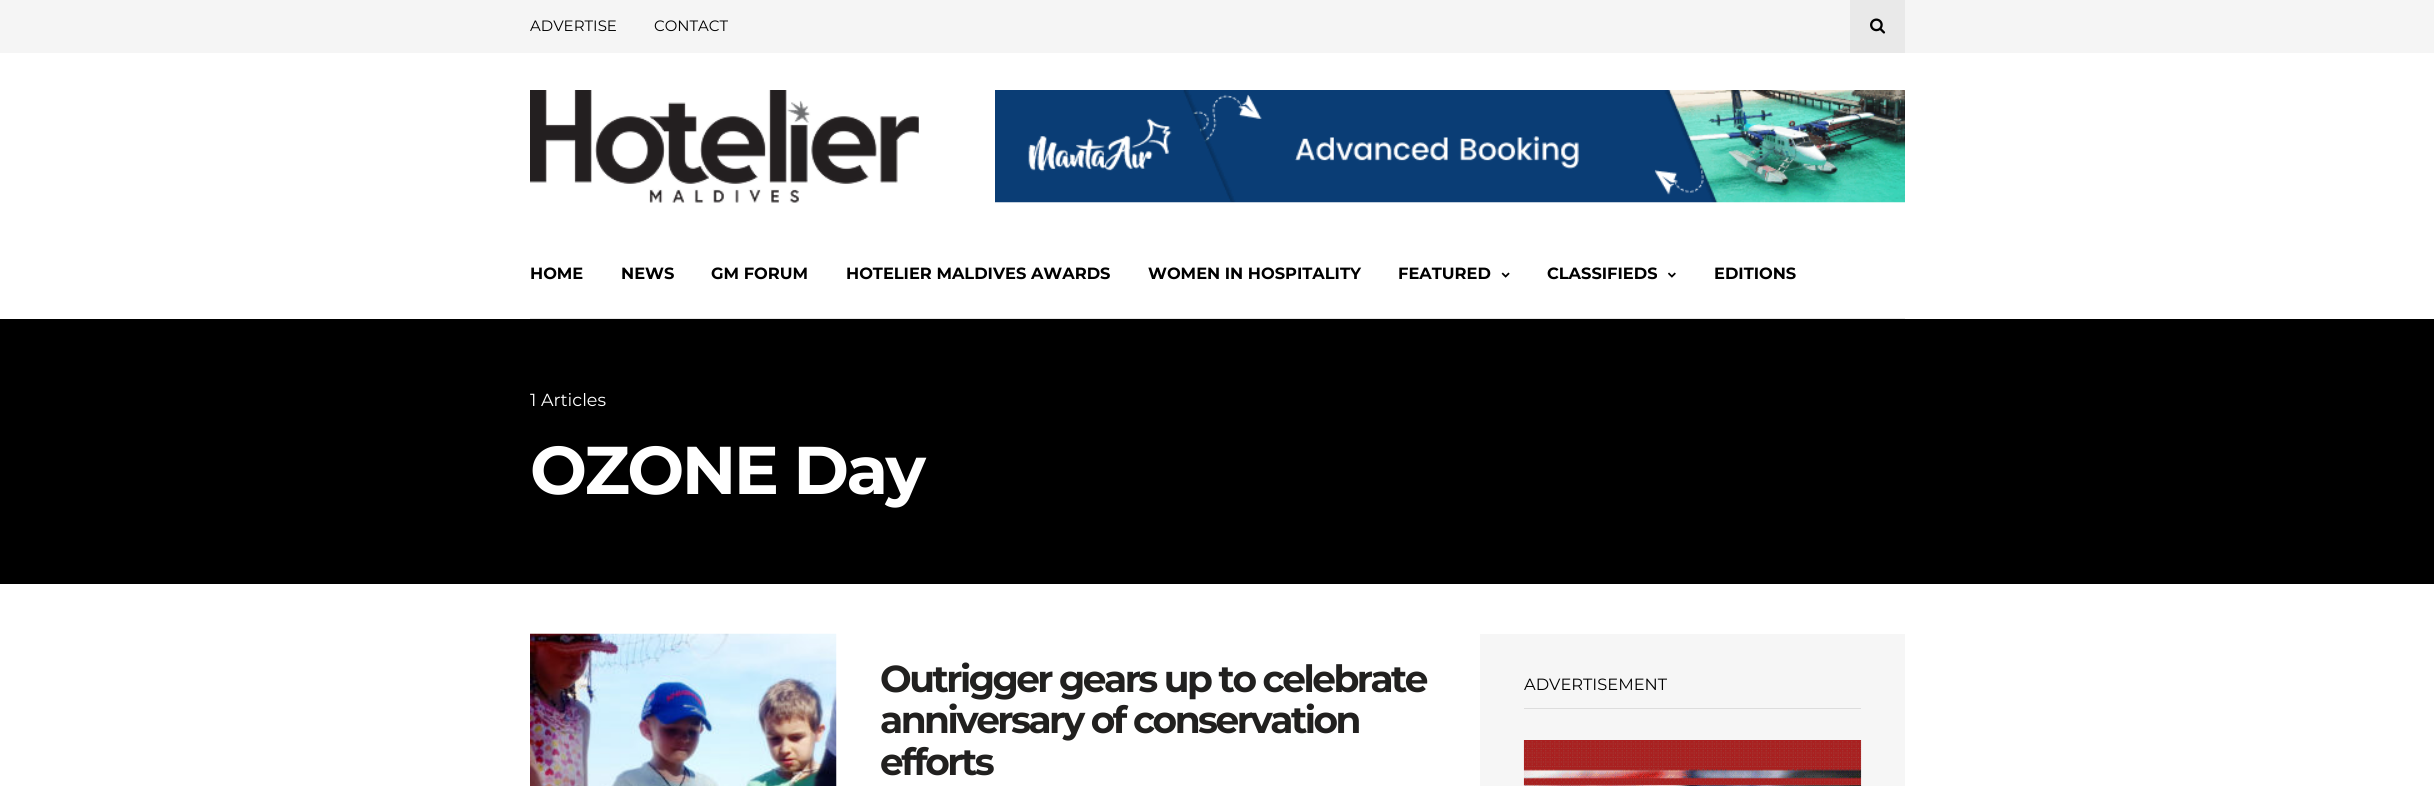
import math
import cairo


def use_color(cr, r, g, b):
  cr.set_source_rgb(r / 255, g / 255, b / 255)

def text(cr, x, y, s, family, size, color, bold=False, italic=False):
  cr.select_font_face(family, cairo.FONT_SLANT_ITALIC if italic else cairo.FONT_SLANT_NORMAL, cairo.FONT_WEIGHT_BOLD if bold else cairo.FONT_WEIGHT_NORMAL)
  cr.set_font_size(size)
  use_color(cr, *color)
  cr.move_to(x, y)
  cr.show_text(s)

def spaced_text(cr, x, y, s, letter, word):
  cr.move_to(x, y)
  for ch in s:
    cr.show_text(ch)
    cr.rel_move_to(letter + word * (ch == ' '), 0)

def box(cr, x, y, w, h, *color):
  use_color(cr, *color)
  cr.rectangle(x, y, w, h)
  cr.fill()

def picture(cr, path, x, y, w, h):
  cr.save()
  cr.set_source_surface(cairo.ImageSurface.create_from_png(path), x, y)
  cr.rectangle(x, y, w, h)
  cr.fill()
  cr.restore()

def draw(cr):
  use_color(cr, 255, 255, 255)
  cr.paint()
  box(cr, 0, 0, 2434, 53, 245, 245, 245)
  box(cr, 1850, 0, 55, 53, 233, 233, 233)
  picture(cr, "img_01.png", 1870, 18, 16, 16)
  picture(cr, "img_02.png", 530, 90, 389, 113)
  picture(cr, "img_03.png", 995, 90, 910, 113)
  box(cr, 530, 318, 1375, 1, 232, 232, 232)
  picture(cr, "img_04.png", 1501, 272, 9, 6)
  picture(cr, "img_05.png", 1668, 272, 8, 6)
  box(cr, 0, 319, 2434, 265, 0, 0, 0)
  picture(cr, "img_06.png", 530, 633, 307, 153)
  box(cr, 1480, 634, 425, 152, 246, 246, 246)
  box(cr, 1524, 708, 337, 1, 221, 221, 221)
  picture(cr, "img_07.png", 1523, 740, 339, 46)
  text(cr, 530, 31, "ADVERTISE", "Montserrat", 15, (0, 0, 0))
  text(cr, 654, 31, "CONTACT", "Montserrat", 15, (0, 0, 0))
  text(cr, 530, 279, "HOME", "Montserrat", 16.25, (0, 0, 0), bold=True)
  text(cr, 621, 279, "NEWS", "Montserrat", 16.25, (0, 0, 0), bold=True)
  text(cr, 711, 279, "GM FORUM", "Montserrat", 16.25, (0, 0, 0), bold=True)
  text(cr, 846, 279, "HOTELIER MALDIVES AWARDS", "Montserrat", 16.25, (0, 0, 0), bold=True)
  text(cr, 1148, 279, "WOMEN IN HOSPITALITY", "Montserrat", 16.25, (0, 0, 0), bold=True)
  text(cr, 1398, 279, "FEATURED", "Montserrat", 16.25, (0, 0, 0), bold=True)
  text(cr, 1547, 279, "CLASSIFIEDS", "Montserrat", 16.25, (0, 0, 0), bold=True)
  text(cr, 1714, 279, "EDITIONS", "Montserrat", 16.25, (0, 0, 0), bold=True)
  text(cr, 530, 406, "1 Articles", "Montserrat", 17.5, (255, 255, 255))
  cr.select_font_face("Montserrat", cairo.FONT_SLANT_NORMAL, cairo.FONT_WEIGHT_BOLD)
  cr.set_font_size(67.5)
  spaced_text(cr, 530, 494, "OZONE Day", -2.5, 0)
  cr.set_font_size(37.5)
  use_color(cr, 33, 32, 31)
  spaced_text(cr, 880, 692, "Outrigger gears up to celebrate", -2.5, 0)
  spaced_text(cr, 880, 733, "anniversary of conservation", -2.5, 0)
  spaced_text(cr, 880, 775, "efforts", -2.5, 0)
  text(cr, 1524, 690, "ADVERTISEMENT", "Montserrat", 16.25, (0, 0, 0))


surface = cairo.ImageSurface(cairo.FORMAT_RGB24, 2434, 786)
cr = cairo.Context(surface)
options = cairo.FontOptions()
options.set_hint_metrics(cairo.HINT_METRICS_OFF)
options.set_hint_style(cairo.HINT_STYLE_NONE)
cr.set_font_options(options)
cr.set_miter_limit(4)
draw(cr)
surface.write_to_png("out.png")
